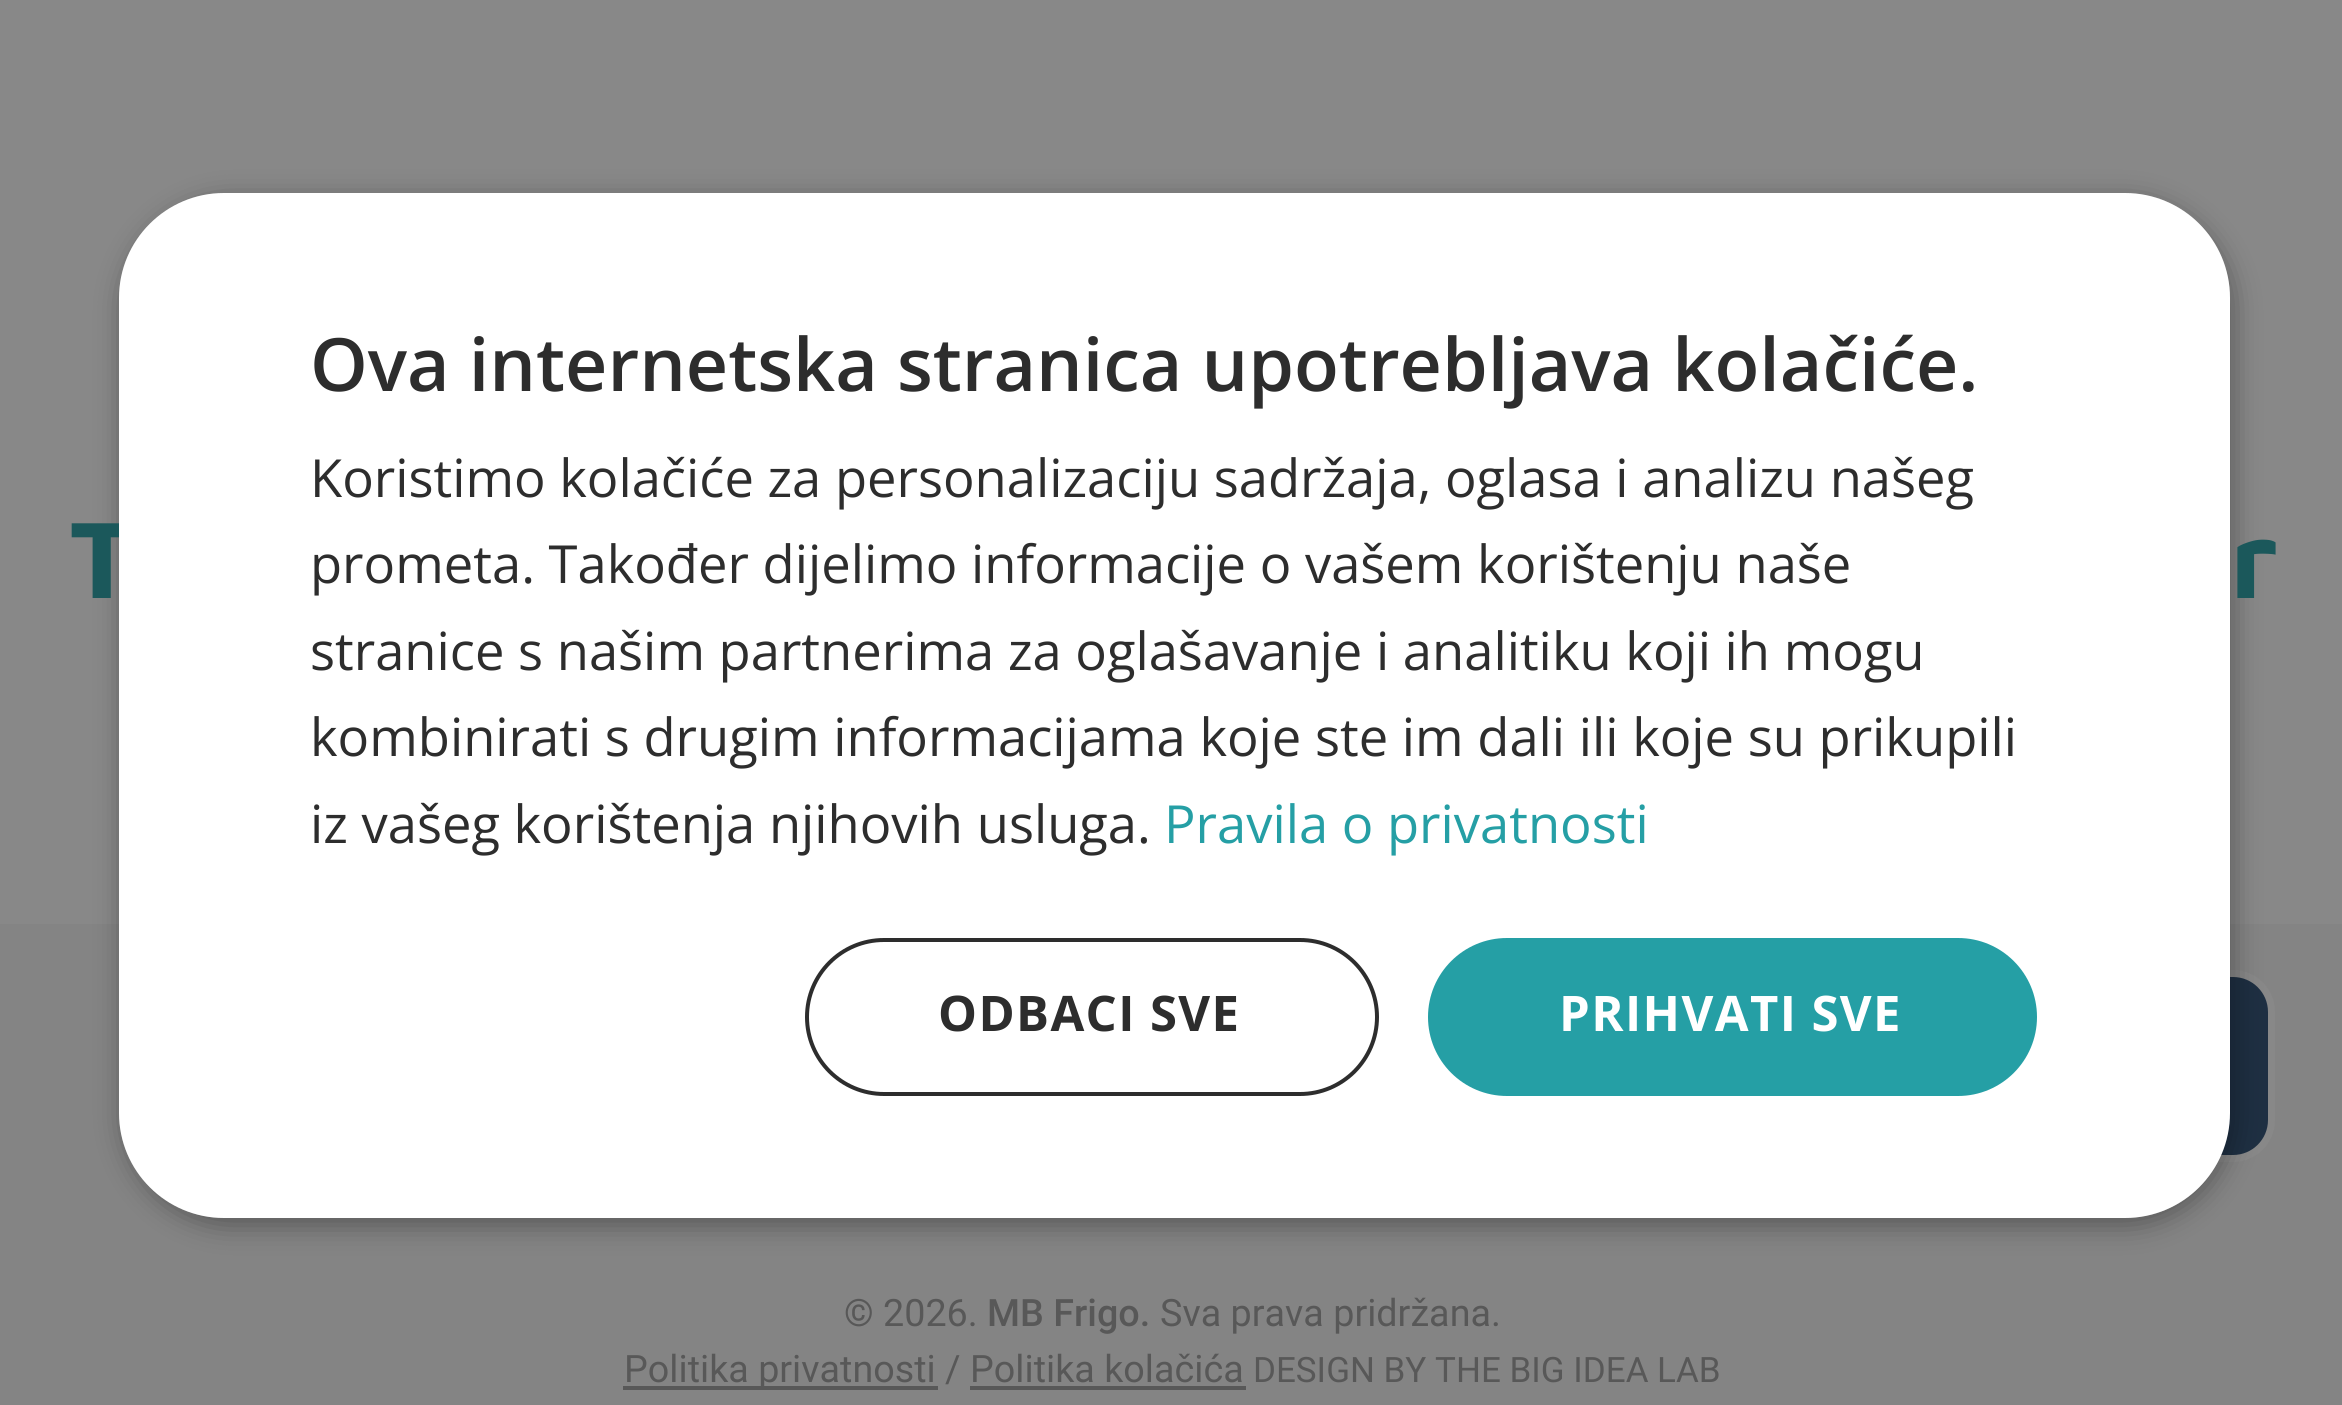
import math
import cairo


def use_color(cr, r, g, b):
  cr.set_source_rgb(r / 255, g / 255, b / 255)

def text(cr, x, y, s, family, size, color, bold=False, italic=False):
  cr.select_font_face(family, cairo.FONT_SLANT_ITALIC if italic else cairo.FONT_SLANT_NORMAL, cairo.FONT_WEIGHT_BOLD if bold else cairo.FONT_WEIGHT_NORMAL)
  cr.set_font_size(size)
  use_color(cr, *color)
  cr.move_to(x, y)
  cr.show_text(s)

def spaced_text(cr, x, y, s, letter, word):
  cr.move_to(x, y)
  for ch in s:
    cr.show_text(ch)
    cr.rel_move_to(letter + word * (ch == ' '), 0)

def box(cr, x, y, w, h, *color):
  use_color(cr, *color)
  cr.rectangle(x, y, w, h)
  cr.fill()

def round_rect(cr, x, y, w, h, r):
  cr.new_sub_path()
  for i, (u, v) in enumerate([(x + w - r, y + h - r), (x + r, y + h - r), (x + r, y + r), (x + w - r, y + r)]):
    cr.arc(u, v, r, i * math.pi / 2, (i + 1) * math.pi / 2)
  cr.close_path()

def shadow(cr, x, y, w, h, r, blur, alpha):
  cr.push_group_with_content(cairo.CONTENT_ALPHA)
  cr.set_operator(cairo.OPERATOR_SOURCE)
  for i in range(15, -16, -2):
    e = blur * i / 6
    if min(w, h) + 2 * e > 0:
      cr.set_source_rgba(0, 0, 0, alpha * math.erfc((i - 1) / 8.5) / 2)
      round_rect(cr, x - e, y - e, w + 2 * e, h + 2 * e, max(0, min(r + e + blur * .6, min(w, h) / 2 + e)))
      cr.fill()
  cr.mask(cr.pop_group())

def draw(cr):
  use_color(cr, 136, 136, 136)
  cr.paint()
  box(cr, 0, 924, 2342, 481, 132, 132, 132)
  use_color(cr, 30, 47, 66)
  round_rect(cr, 1781.5, 973.5, 490, 185, 38.5)
  cr.fill_preserve()
  use_color(cr, 136, 136, 136)
  cr.set_line_width(7)
  cr.stroke()
  cr.save()
  cr.set_fill_rule(cairo.FILL_RULE_EVEN_ODD)
  cr.new_path()
  cr.move_to(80, 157)
  cr.line_to(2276, 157)
  cr.line_to(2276, 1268)
  cr.line_to(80, 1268)
  cr.close_path()
  cr.move_to(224, 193)
  cr.line_to(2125, 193)
  cr.curve_to(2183, 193, 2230, 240, 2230, 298)
  cr.line_to(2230, 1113)
  cr.curve_to(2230, 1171, 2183, 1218, 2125, 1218)
  cr.line_to(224, 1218)
  cr.curve_to(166, 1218, 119, 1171, 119, 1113)
  cr.line_to(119, 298)
  cr.curve_to(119, 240, 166, 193, 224, 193)
  cr.close_path()
  cr.clip()
  use_color(cr, 0, 0, 0)
  shadow(cr, 123, 200, 2110, 1025, 105, 14, 0.35)
  cr.restore()
  box(cr, 623, 1386, 315, 4, 88, 88, 88)
  box(cr, 970, 1386, 276, 4, 88, 88, 88)
  cr.select_font_face("Maven Pro", cairo.FONT_SLANT_NORMAL, cairo.FONT_WEIGHT_BOLD)
  cr.set_font_size(112)
  use_color(cr, 27, 88, 91)
  spaced_text(cr, 69, 598, "T", -2, 0)
  use_color(cr, 255, 255, 255)
  round_rect(cr, 119, 193, 2111, 1025, 105)
  cr.fill()
  text(cr, 310, 391, "Ova internetska stranica upotrebljava kolačiće.", "Open Sans SemiBold", 73.5, (45, 45, 45))
  round_rect(cr, 807, 940, 570, 154, 77)
  cr.set_line_width(4)
  cr.stroke()
  cr.select_font_face("Open Sans", cairo.FONT_SLANT_NORMAL, cairo.FONT_WEIGHT_BOLD)
  cr.set_font_size(49)
  spaced_text(cr, 938, 1031, "ODBACI SVE", 1.4, 0)
  use_color(cr, 37, 159, 165)
  round_rect(cr, 1428, 938, 609, 158, 79)
  cr.fill()
  use_color(cr, 255, 255, 255)
  spaced_text(cr, 1559, 1031, "PRIHVATI SVE", 1.4, 0)
  text(cr, 1164, 843, "Pravila o privatnosti", "Open Sans", 52.5, (37, 159, 165))
  text(cr, 310, 843, "iz vašeg korištenja njihovih usluga.", "Open Sans", 52.5, (45, 45, 45))
  text(cr, 310, 756, "kombinirati s drugim informacijama koje ste im dali ili koje su prikupili", "Open Sans", 52.5, (45, 45, 45))
  text(cr, 310, 670, "stranice s našim partnerima za oglašavanje i analitiku koji ih mogu", "Open Sans", 52.5, (45, 45, 45))
  text(cr, 310, 583, "prometa. Također dijelimo informacije o vašem korištenju naše", "Open Sans", 52.5, (45, 45, 45))
  text(cr, 310, 497, "Koristimo kolačiće za personalizaciju sadržaja, oglasa i analizu našeg", "Open Sans", 52.5, (45, 45, 45))
  cr.select_font_face("Maven Pro", cairo.FONT_SLANT_NORMAL, cairo.FONT_WEIGHT_BOLD)
  cr.set_font_size(112)
  use_color(cr, 27, 88, 91)
  spaced_text(cr, 2230, 598, "r", -2, 0)
  text(cr, 844, 1326, "© 2026.", "Roboto", 37.75, (88, 88, 88))
  text(cr, 987, 1326, "MB Frigo.", "Roboto Medium", 37.75, (88, 88, 88))
  text(cr, 1160, 1326, "Sva prava pridržana.", "Roboto", 37.75, (88, 88, 88))
  text(cr, 624, 1382, "Politika privatnosti / Politika kolačića", "Roboto", 37.75, (88, 88, 88))
  text(cr, 1253, 1382, "DESIGN BY THE BIG IDEA LAB", "Roboto", 35, (88, 88, 88))


surface = cairo.ImageSurface(cairo.FORMAT_RGB24, 2342, 1405)
cr = cairo.Context(surface)
options = cairo.FontOptions()
options.set_hint_metrics(cairo.HINT_METRICS_OFF)
options.set_hint_style(cairo.HINT_STYLE_NONE)
cr.set_font_options(options)
cr.set_miter_limit(4)
draw(cr)
surface.write_to_png("out.png")
